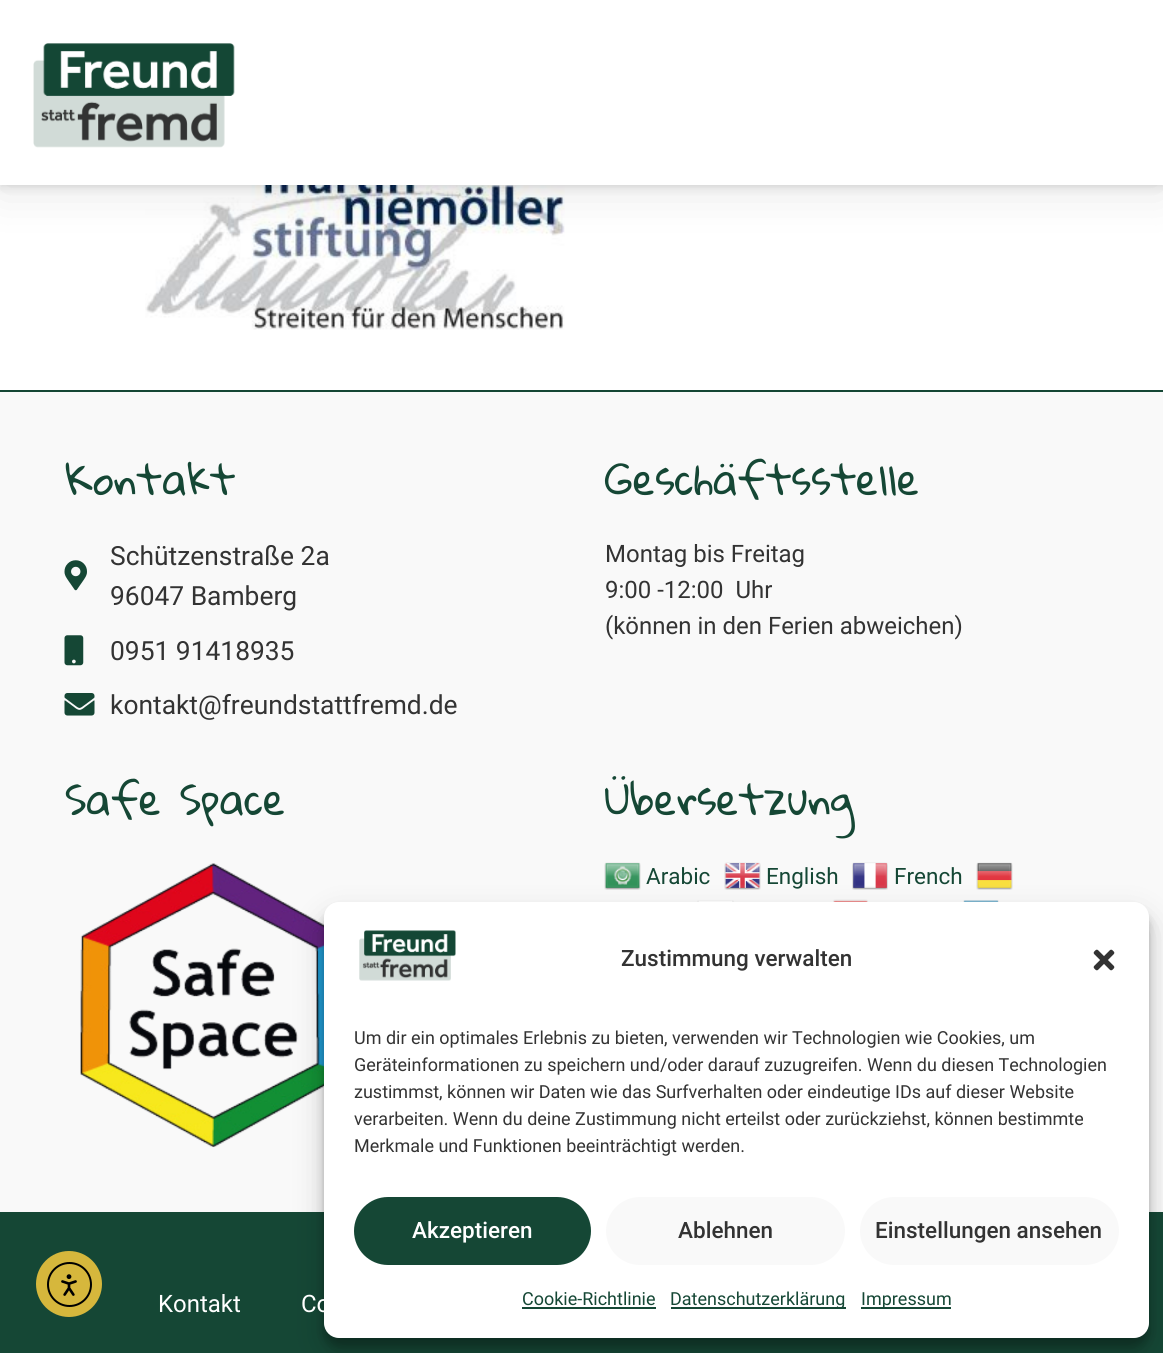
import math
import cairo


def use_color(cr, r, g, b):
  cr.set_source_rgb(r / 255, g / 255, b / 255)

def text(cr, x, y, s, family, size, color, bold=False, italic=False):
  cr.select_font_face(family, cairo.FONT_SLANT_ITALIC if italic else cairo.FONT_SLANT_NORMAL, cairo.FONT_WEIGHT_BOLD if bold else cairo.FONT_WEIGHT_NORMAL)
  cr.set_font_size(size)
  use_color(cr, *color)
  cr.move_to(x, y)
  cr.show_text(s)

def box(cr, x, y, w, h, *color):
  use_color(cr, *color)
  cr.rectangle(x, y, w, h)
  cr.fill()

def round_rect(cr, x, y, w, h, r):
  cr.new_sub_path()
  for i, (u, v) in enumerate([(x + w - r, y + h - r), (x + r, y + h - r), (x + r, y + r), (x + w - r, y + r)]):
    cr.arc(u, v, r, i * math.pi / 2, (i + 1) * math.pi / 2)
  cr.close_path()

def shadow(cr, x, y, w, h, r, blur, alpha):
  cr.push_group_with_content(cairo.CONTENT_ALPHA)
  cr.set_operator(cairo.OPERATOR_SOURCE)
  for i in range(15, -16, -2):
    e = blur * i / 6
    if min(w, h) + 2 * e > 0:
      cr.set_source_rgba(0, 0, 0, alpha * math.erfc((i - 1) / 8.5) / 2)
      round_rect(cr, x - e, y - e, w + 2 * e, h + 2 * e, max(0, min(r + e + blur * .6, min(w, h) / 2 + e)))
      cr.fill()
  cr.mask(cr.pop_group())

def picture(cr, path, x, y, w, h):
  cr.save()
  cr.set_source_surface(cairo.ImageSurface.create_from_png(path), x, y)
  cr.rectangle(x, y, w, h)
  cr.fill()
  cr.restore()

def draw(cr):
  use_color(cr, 255, 255, 255)
  cr.paint()
  picture(cr, "img_02.png", 145, 185, 420, 145)
  use_color(cr, 0, 0, 0)
  shadow(cr, 0, 8, 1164, 184, 0, 22.5, 0.1)
  box(cr, 0, 0, 1163, 185, 255, 255, 255)
  cr.save()
  cr.set_fill_rule(cairo.FILL_RULE_EVEN_ODD)
  cr.new_path()
  cr.move_to(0, 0)
  cr.line_to(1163, 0)
  cr.line_to(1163, 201)
  cr.line_to(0, 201)
  cr.close_path()
  cr.move_to(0, 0)
  cr.line_to(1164, 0)
  cr.line_to(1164, 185)
  cr.line_to(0, 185)
  cr.close_path()
  cr.clip()
  use_color(cr, 0, 0, 0)
  shadow(cr, 0, 3, 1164, 185, 0, 4, 0.1)
  cr.restore()
  picture(cr, "img_01.png", 33, 43, 202, 105)
  box(cr, 0, 392, 1163, 820, 249, 249, 249)
  box(cr, 0, 390, 1163, 2, 21, 71, 53)
  picture(cr, "img_03.png", 64, 560, 23, 31)
  picture(cr, "img_04.png", 64, 635, 20, 31)
  picture(cr, "img_05.png", 64, 693, 31, 23)
  picture(cr, "img_06.png", 80, 863, 244, 285)
  picture(cr, "img_07.png", 604, 862, 37, 28)
  picture(cr, "img_08.png", 724, 862, 37, 28)
  picture(cr, "img_09.png", 852, 862, 36, 28)
  picture(cr, "img_10.png", 976, 862, 37, 28)
  picture(cr, "img_11.png", 697, 900, 37, 2)
  picture(cr, "img_12.png", 833, 899, 35, 3)
  picture(cr, "img_13.png", 963, 900, 36, 2)
  box(cr, 0, 1212, 1163, 141, 21, 71, 53)
  use_color(cr, 214, 183, 60)
  cr.arc(69, 1284, 33, 0, 2 * math.pi)
  cr.fill()
  cr.arc(69.5, 1284.5, 21.5, 0, 2 * math.pi)
  use_color(cr, 0, 0, 0)
  cr.stroke()
  picture(cr, "img_14.png", 61, 1274, 16, 22)
  use_color(cr, 0, 0, 0)
  shadow(cr, 324, 911, 825, 436, 15, 4.5, 0.23)
  shadow(cr, 324, 917, 825, 436, 15, 15, 0.19)
  use_color(cr, 255, 255, 255)
  round_rect(cr, 324, 902, 825, 436, 15)
  cr.fill()
  picture(cr, "img_15.png", 359, 930, 97, 51)
  picture(cr, "img_16.png", 1093, 949, 22, 22)
  use_color(cr, 21, 71, 53)
  round_rect(cr, 355, 1198, 235, 66, 33)
  cr.fill_preserve()
  cr.stroke()
  use_color(cr, 249, 249, 249)
  round_rect(cr, 606, 1197, 239, 68, 34)
  cr.fill()
  round_rect(cr, 860, 1197, 259, 68, 34)
  cr.fill()
  box(cr, 522, 1307, 134, 2, 21, 71, 53)
  box(cr, 671, 1307, 175, 2, 21, 71, 53)
  box(cr, 861, 1307, 90, 2, 21, 71, 53)
  text(cr, 65, 495, "Kontakt", "Gloria Hallelujah", 40.75, (21, 71, 53))
  text(cr, 110, 565, "Schützenstraße 2a", "Roboto", 26.4, (51, 51, 51))
  text(cr, 110, 605, "96047 Bamberg", "Roboto", 26.4, (51, 51, 51))
  text(cr, 110, 660, "0951 91418935", "Roboto", 26.4, (51, 51, 51))
  text(cr, 110, 714, "kontakt@freundstattfremd.de", "Roboto", 26.4, (51, 51, 51))
  text(cr, 605, 495, "Geschäftsstelle", "Gloria Hallelujah", 40.75, (21, 71, 53))
  text(cr, 605, 562, "Montag bis Freitag", "Roboto", 24, (51, 51, 51))
  text(cr, 605, 598, "9:00 -12:00  Uhr", "Roboto", 24, (51, 51, 51))
  text(cr, 605, 634, "(können in den Ferien abweichen)", "Roboto", 24, (51, 51, 51))
  text(cr, 65, 815, "Safe Space", "Gloria Hallelujah", 40.75, (21, 71, 53))
  text(cr, 605, 815, "Übersetzung", "Gloria Hallelujah", 40.75, (21, 71, 53))
  text(cr, 646, 884, "Arabic", "Roboto", 22.5, (21, 71, 53))
  text(cr, 766, 884, "English", "Roboto", 22.5, (21, 71, 53))
  text(cr, 894, 884, "French", "Roboto", 22.5, (21, 71, 53))
  text(cr, 158, 1312, "Kontakt", "Roboto", 24, (255, 255, 255))
  text(cr, 301, 1312, "Co", "Roboto", 24, (255, 255, 255))
  text(cr, 621, 966, "Zustimmung verwalten", "Roboto Medium", 22.5, (51, 51, 51))
  text(cr, 354, 1044, "Um dir ein optimales Erlebnis zu bieten, verwenden wir Technologien wie Cookies, um", "Roboto", 18, (51, 51, 51))
  text(cr, 354, 1071, "Geräteinformationen zu speichern und/oder darauf zuzugreifen. Wenn du diesen Technologien", "Roboto", 18, (51, 51, 51))
  text(cr, 354, 1098, "zustimmst, können wir Daten wie das Surfverhalten oder eindeutige IDs auf dieser Website", "Roboto", 18, (51, 51, 51))
  text(cr, 354, 1125, "verarbeiten. Wenn du deine Zustimmung nicht erteilst oder zurückziehst, können bestimmte", "Roboto", 18, (51, 51, 51))
  text(cr, 354, 1152, "Merkmale und Funktionen beeinträchtigt werden.", "Roboto", 18, (51, 51, 51))
  text(cr, 412, 1238, "Akzeptieren", "Roboto Medium", 22.5, (255, 255, 255))
  text(cr, 678, 1238, "Ablehnen", "Roboto Medium", 22.5, (51, 51, 51))
  text(cr, 875, 1238, "Einstellungen ansehen", "Roboto Medium", 22.5, (51, 51, 51))
  text(cr, 522, 1305, "Cookie-Richtlinie", "Roboto", 18, (21, 71, 53))
  text(cr, 670, 1305, "Datenschutzerklärung", "Roboto", 18, (21, 71, 53))
  text(cr, 861, 1305, "Impressum", "Roboto", 18, (21, 71, 53))


surface = cairo.ImageSurface(cairo.FORMAT_RGB24, 1163, 1353)
cr = cairo.Context(surface)
options = cairo.FontOptions()
options.set_hint_metrics(cairo.HINT_METRICS_OFF)
options.set_hint_style(cairo.HINT_STYLE_NONE)
cr.set_font_options(options)
cr.set_miter_limit(4)
draw(cr)
surface.write_to_png("out.png")
